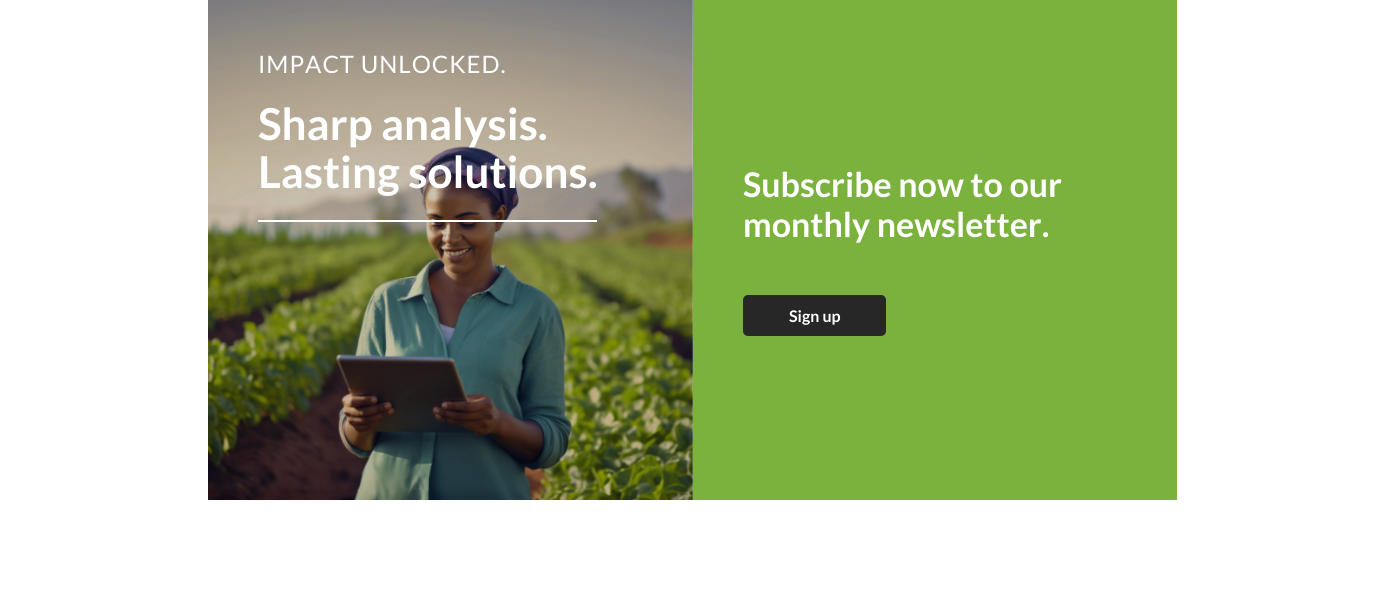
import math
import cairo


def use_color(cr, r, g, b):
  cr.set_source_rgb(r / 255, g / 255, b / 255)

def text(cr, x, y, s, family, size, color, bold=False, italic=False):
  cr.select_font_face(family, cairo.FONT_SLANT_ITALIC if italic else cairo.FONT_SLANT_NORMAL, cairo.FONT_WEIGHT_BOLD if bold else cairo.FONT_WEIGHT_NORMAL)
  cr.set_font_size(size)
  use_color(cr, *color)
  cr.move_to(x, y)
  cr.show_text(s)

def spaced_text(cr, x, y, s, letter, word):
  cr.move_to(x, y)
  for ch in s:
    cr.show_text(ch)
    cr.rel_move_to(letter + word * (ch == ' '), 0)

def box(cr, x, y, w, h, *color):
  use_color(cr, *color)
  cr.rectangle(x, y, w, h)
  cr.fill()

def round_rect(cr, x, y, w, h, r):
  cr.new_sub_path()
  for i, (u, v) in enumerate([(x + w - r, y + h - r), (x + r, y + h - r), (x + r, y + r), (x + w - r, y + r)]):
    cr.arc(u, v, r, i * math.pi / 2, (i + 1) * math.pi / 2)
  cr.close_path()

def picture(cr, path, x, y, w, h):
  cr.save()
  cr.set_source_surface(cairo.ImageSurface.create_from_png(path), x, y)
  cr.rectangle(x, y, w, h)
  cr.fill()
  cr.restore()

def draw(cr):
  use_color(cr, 255, 255, 255)
  cr.paint()
  picture(cr, "img_01.png", 208, 0, 485, 500)
  box(cr, 258, 220, 339, 2, 255, 255, 255)
  box(cr, 693, 0, 484, 500, 123, 177, 61)
  use_color(cr, 39, 39, 39)
  round_rect(cr, 743, 295, 143, 41, 5)
  cr.fill()
  cr.select_font_face("Lato")
  cr.set_font_size(24)
  use_color(cr, 255, 255, 255)
  spaced_text(cr, 258, 73, "IMPACT UNLOCKED.", 1, 0)
  text(cr, 258, 140, "Sharp analysis.", "Lato", 44, (255, 255, 255), bold=True)
  text(cr, 258, 188, "Lasting solutions.", "Lato", 44, (255, 255, 255), bold=True)
  text(cr, 743, 197, "Subscribe now to our", "Lato", 34, (255, 255, 255), bold=True)
  text(cr, 743, 237, "monthly newsletter.", "Lato", 34, (255, 255, 255), bold=True)
  text(cr, 789, 322, "Sign up", "Lato", 16, (255, 255, 255), bold=True)


surface = cairo.ImageSurface(cairo.FORMAT_RGB24, 1385, 598)
cr = cairo.Context(surface)
options = cairo.FontOptions()
options.set_hint_metrics(cairo.HINT_METRICS_OFF)
options.set_hint_style(cairo.HINT_STYLE_NONE)
cr.set_font_options(options)
cr.set_miter_limit(4)
draw(cr)
surface.write_to_png("out.png")
